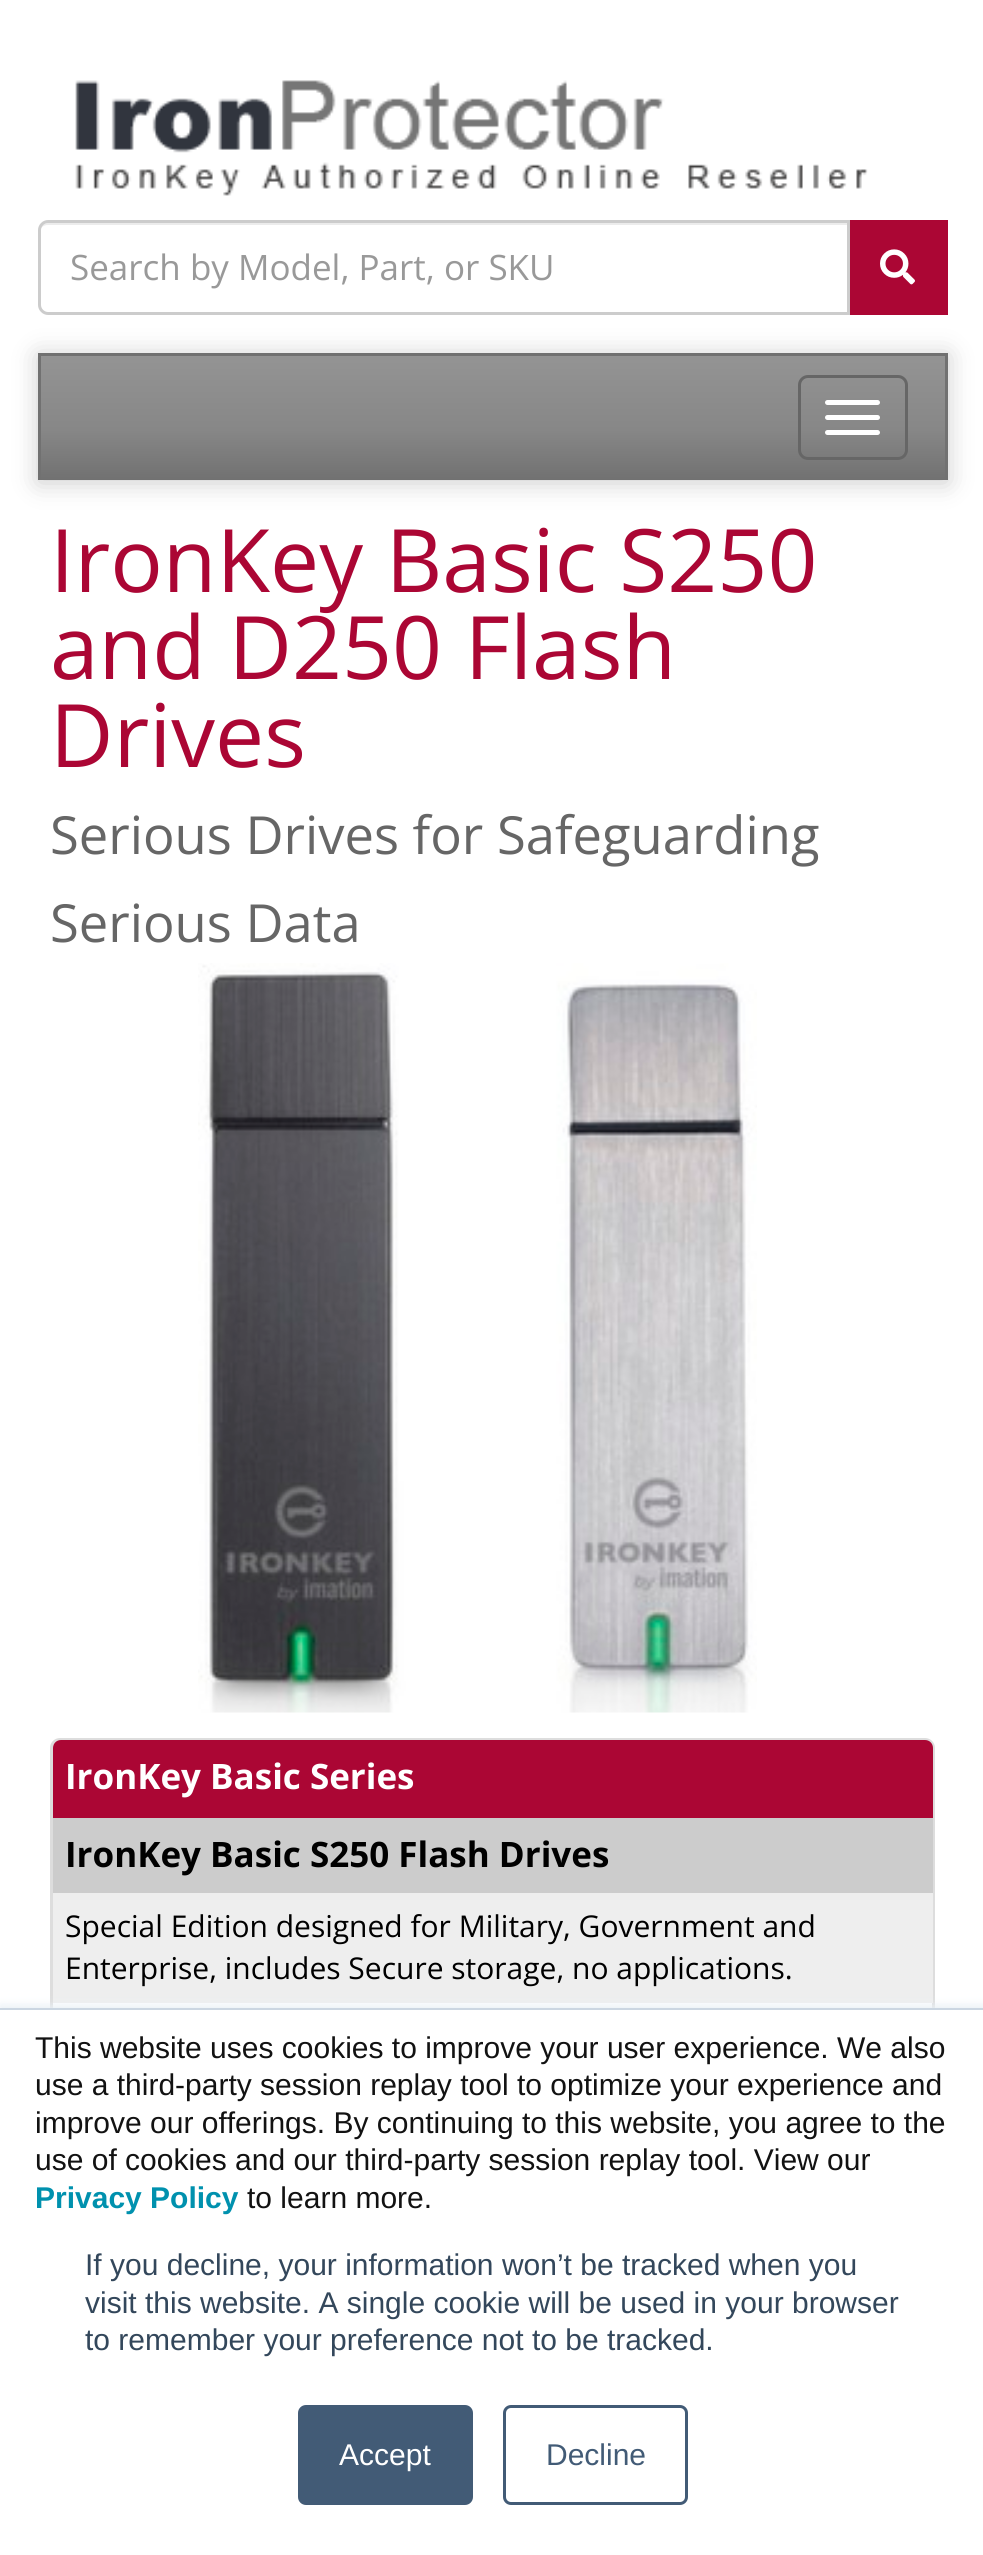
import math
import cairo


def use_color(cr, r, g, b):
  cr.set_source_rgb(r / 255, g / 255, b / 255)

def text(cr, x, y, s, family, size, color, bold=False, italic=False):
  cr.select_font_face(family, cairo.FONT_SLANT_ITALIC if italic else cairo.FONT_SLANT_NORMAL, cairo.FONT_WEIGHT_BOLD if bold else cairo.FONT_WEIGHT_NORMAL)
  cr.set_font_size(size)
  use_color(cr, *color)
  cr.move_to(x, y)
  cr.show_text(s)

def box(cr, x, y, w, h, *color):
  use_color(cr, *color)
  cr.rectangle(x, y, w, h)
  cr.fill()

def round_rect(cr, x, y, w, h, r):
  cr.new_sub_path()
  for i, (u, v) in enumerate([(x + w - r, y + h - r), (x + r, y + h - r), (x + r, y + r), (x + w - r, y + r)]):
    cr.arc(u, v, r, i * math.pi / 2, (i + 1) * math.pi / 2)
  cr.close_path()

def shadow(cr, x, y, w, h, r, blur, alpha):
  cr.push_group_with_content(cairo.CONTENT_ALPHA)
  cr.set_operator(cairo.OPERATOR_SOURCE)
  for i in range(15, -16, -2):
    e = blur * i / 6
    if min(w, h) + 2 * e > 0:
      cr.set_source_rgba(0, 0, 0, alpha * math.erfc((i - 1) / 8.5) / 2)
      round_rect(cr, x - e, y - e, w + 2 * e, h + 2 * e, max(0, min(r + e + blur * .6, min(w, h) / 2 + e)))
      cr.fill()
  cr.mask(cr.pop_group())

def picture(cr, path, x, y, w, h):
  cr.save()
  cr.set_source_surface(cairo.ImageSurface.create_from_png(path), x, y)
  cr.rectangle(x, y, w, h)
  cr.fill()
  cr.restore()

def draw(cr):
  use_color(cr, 255, 255, 255)
  cr.paint()
  picture(cr, "img_01.png", 75, 80, 793, 116)
  use_color(cr, 236, 236, 236)
  cr.new_path()
  cr.move_to(48, 225)
  cr.line_to(848, 225)
  cr.line_to(848, 223)
  cr.line_to(48, 223)
  cr.curve_to(43, 223, 40, 227, 40, 232)
  cr.curve_to(40, 228, 43, 225, 48, 225)
  cr.close_path()
  cr.fill()
  cr.new_path()
  cr.move_to(48, 221.5)
  cr.line_to(848.5, 221.5)
  cr.line_to(848.5, 313.5)
  cr.line_to(48, 313.5)
  cr.curve_to(43.5, 313.5, 39.5, 309.5, 39.5, 305)
  cr.line_to(39.5, 230)
  cr.curve_to(39.5, 225.5, 43.5, 221.5, 48, 221.5)
  cr.close_path()
  use_color(cr, 204, 204, 204)
  cr.set_line_width(3)
  cr.stroke()
  box(cr, 850, 220, 98, 95, 171, 6, 52)
  picture(cr, "img_02.png", 880, 249, 35, 36)
  use_color(cr, 0, 0, 0)
  shadow(cr, 38, 355, 910, 128, 0, 12.5, 0.2)
  gradient = cairo.LinearGradient(493, 355, 493, 480)
  gradient.add_color_stop_rgba(0, 0.58, 0.58, 0.58, 1)
  gradient.add_color_stop_rgba(0.6, 0.529, 0.529, 0.529, 1)
  gradient.add_color_stop_rgba(1, 0.443, 0.443, 0.443, 1)
  cr.set_source(gradient)
  cr.rectangle(41, 356, 904, 124)
  cr.fill()
  box(cr, 38, 353, 910, 3, 113, 113, 113)
  box(cr, 945, 353, 3, 127, 113, 113, 113)
  box(cr, 38, 353, 3, 127, 113, 113, 113)
  round_rect(cr, 799.5, 376.5, 107, 82, 8.5)
  use_color(cr, 102, 102, 102)
  cr.stroke()
  use_color(cr, 255, 255, 255)
  round_rect(cr, 825, 400, 55, 5, 2.5)
  cr.fill()
  round_rect(cr, 825, 415, 55, 5, 2.5)
  cr.fill()
  round_rect(cr, 825, 430, 55, 5, 2.5)
  cr.fill()
  picture(cr, "img_03.png", 198, 963, 559, 750)
  round_rect(cr, 51.5, 1739.5, 882, 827, 8.5)
  use_color(cr, 221, 221, 221)
  cr.stroke()
  use_color(cr, 171, 6, 52)
  cr.new_path()
  cr.move_to(61, 1740)
  cr.line_to(925, 1740)
  cr.curve_to(929.5, 1740, 933, 1743.5, 933, 1748)
  cr.line_to(933, 1818)
  cr.line_to(53, 1818)
  cr.line_to(53, 1748)
  cr.curve_to(53, 1743.5, 56.5, 1740, 61, 1740)
  cr.close_path()
  cr.fill()
  box(cr, 53, 1818, 880, 75, 204, 204, 204)
  box(cr, 53, 1893, 880, 110, 238, 238, 238)
  use_color(cr, 234, 240, 246)
  shadow(cr, 0, 2005, 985, 548, 0, 4, 1)
  box(cr, 0, 2008, 983, 2, 203, 214, 226)
  box(cr, 0, 2010, 983, 545, 255, 255, 255)
  use_color(cr, 66, 91, 118)
  round_rect(cr, 299.5, 2406.5, 172, 97, 6.5)
  cr.fill_preserve()
  cr.stroke()
  round_rect(cr, 504.5, 2406.5, 182, 97, 6.5)
  cr.stroke()
  text(cr, 70, 280, "Search by Model, Part, or SKU", "Open Sans", 35, (153, 153, 153))
  text(cr, 50, 592, "IronKey Basic S250", "Open Sans", 87.5, (171, 6, 52))
  text(cr, 50, 679, "and D250 Flash", "Open Sans", 87.5, (171, 6, 52))
  text(cr, 50, 767, "Drives", "Open Sans", 87.5, (171, 6, 52))
  text(cr, 50, 854, "Serious Drives for Safeguarding", "Open Sans", 52.5, (102, 102, 102))
  text(cr, 50, 942, "Serious Data", "Open Sans", 52.5, (102, 102, 102))
  text(cr, 65, 1789, "IronKey Basic Series", "Open Sans", 35, (255, 255, 255), bold=True)
  text(cr, 65, 1867, "IronKey Basic S250 Flash Drives", "Open Sans", 35, (0, 0, 0), bold=True)
  text(cr, 65, 1937, "Special Edition designed for Military, Government and", "Open Sans", 30, (0, 0, 0))
  text(cr, 65, 1979, "Enterprise, includes Secure storage, no applications.", "Open Sans", 30, (0, 0, 0))
  text(cr, 35, 2058, "This website uses cookies to improve your user experience. We also", "Liberation Sans", 30, (18, 18, 18))
  text(cr, 35, 2095, "use a third-party session replay tool to optimize your experience and", "Liberation Sans", 30, (18, 18, 18))
  text(cr, 35, 2133, "improve our offerings. By continuing to this website, you agree to the", "Liberation Sans", 30, (18, 18, 18))
  text(cr, 35, 2170, "use of cookies and our third-party session replay tool. View our", "Liberation Sans", 30, (18, 18, 18))
  text(cr, 35, 2208, "Privacy Policy", "Liberation Sans", 30, (0, 145, 174), bold=True)
  text(cr, 247, 2208, "to learn more.", "Liberation Sans", 30, (18, 18, 18))
  text(cr, 85, 2275, "If you decline, your information won’t be tracked when you", "Liberation Sans", 30, (51, 71, 91))
  text(cr, 85, 2313, "visit this website. A single cookie will be used in your browser", "Liberation Sans", 30, (51, 71, 91))
  text(cr, 85, 2350, "to remember your preference not to be tracked.", "Liberation Sans", 30, (51, 71, 91))
  text(cr, 339, 2465, "Accept", "Liberation Sans", 30, (255, 255, 255))
  text(cr, 546, 2465, "Decline", "Liberation Sans", 30, (66, 91, 118))


surface = cairo.ImageSurface(cairo.FORMAT_RGB24, 983, 2555)
cr = cairo.Context(surface)
options = cairo.FontOptions()
options.set_hint_metrics(cairo.HINT_METRICS_OFF)
options.set_hint_style(cairo.HINT_STYLE_NONE)
cr.set_font_options(options)
cr.set_miter_limit(4)
draw(cr)
surface.write_to_png("out.png")
